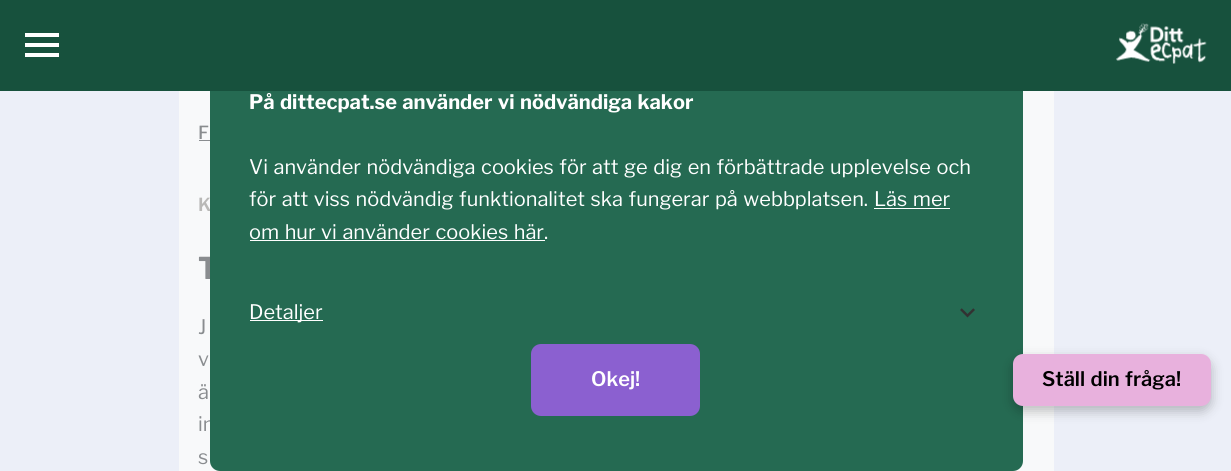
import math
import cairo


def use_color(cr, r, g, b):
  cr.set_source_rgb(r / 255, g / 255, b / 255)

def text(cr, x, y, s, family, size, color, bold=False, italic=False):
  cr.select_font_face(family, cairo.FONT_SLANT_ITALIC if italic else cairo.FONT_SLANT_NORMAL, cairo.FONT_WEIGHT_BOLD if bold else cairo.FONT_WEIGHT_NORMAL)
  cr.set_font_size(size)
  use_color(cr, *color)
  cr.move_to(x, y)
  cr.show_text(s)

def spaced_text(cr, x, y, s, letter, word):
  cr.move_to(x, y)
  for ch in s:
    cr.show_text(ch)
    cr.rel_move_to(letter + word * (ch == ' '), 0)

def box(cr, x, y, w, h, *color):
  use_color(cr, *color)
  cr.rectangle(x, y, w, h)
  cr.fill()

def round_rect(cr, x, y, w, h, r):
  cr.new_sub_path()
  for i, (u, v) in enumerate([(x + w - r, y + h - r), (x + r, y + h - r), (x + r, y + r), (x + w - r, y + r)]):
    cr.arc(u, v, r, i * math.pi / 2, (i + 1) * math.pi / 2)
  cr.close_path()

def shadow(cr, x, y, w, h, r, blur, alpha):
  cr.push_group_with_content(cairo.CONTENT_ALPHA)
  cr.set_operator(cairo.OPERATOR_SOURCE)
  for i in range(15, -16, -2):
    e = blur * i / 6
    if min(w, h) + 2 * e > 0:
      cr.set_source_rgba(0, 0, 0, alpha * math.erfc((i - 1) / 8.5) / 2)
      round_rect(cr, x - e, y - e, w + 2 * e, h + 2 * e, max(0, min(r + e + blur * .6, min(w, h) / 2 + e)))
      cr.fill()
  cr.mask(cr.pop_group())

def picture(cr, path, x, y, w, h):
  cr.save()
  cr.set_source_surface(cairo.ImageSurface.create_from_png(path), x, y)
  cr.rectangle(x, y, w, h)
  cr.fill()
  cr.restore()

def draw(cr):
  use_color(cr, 236, 239, 248)
  cr.paint()
  box(cr, 179, 91, 875, 380, 248, 249, 250)
  box(cr, 199, 140, 11, 1, 137, 140, 143)
  text(cr, 198, 139, "F", "Libre Franklin Medium", 18, (137, 140, 143))
  cr.select_font_face("Libre Franklin SemiBold")
  use_color(cr, 185, 185, 183)
  spaced_text(cr, 198, 211, "K", 0, 1.25)
  cr.select_font_face("Libre Franklin ExtraBold")
  cr.set_font_size(30)
  use_color(cr, 137, 140, 143)
  spaced_text(cr, 198, 279, "T", 0, 1.25)
  cr.select_font_face("Libre Franklin")
  cr.set_font_size(20)
  spaced_text(cr, 198, 334, "J", 0, 1.25)
  spaced_text(cr, 198, 366, "v", 0, 1.25)
  spaced_text(cr, 198, 399, "ä", 0, 1.25)
  spaced_text(cr, 198, 431, "in", 0, 1.25)
  use_color(cr, 37, 106, 82)
  round_rect(cr, 210, 46, 813, 425, 10)
  cr.fill()
  box(cr, 0, 0, 1231, 91, 23, 81, 61)
  picture(cr, "img_01.png", 1116, 23, 91, 41)
  box(cr, 25, 53, 34, 4, 255, 255, 255)
  box(cr, 25, 43, 34, 4, 255, 255, 255)
  box(cr, 25, 33, 34, 4, 255, 255, 255)
  use_color(cr, 139, 96, 208)
  round_rect(cr, 531, 344, 169, 72, 10)
  cr.fill()
  text(cr, 591, 386, "Okej!", "Libre Franklin SemiBold", 20, (255, 255, 255))
  picture(cr, "img_02.png", 960, 308, 15, 10)
  box(cr, 250, 320, 73, 1, 255, 255, 255)
  text(cr, 249, 319, "Detaljer", "Libre Franklin", 20, (255, 255, 255))
  text(cr, 544, 239, ".", "Libre Franklin", 20, (255, 255, 255))
  spaced_text(cr, 249, 239, "om hur vi använder cookies här", 0, 1.25)
  box(cr, 250, 240, 295, 1, 255, 255, 255)
  spaced_text(cr, 874, 206, "Läs mer", 0, 1.25)
  box(cr, 874, 208, 76, 1, 255, 255, 255)
  spaced_text(cr, 249, 206, "för att viss nödvändig funktionalitet ska fungerar på webbplatsen.", 0, 1.25)
  spaced_text(cr, 249, 174, "Vi använder nödvändiga cookies för att ge dig en förbättrade upplevelse och", 0, 1.25)
  cr.select_font_face("Libre Franklin", cairo.FONT_SLANT_NORMAL, cairo.FONT_WEIGHT_BOLD)
  spaced_text(cr, 249, 109, "På dittecpat.se använder vi nödvändiga kakor", 0, 1.25)
  cr.select_font_face("Libre Franklin")
  use_color(cr, 137, 140, 143)
  spaced_text(cr, 198, 464, "s", 0, 1.25)
  use_color(cr, 0, 0, 0)
  shadow(cr, 1013, 359, 198, 52, 10, 6, 0.25)
  use_color(cr, 232, 177, 221)
  round_rect(cr, 1013, 354, 198, 52, 10)
  cr.fill()
  cr.select_font_face("Libre Franklin SemiBold")
  use_color(cr, 0, 0, 0)
  spaced_text(cr, 1042, 386, "Ställ din fråga!", 0, 1.25)


surface = cairo.ImageSurface(cairo.FORMAT_RGB24, 1231, 471)
cr = cairo.Context(surface)
options = cairo.FontOptions()
options.set_hint_metrics(cairo.HINT_METRICS_OFF)
options.set_hint_style(cairo.HINT_STYLE_NONE)
cr.set_font_options(options)
cr.set_miter_limit(4)
draw(cr)
surface.write_to_png("out.png")
